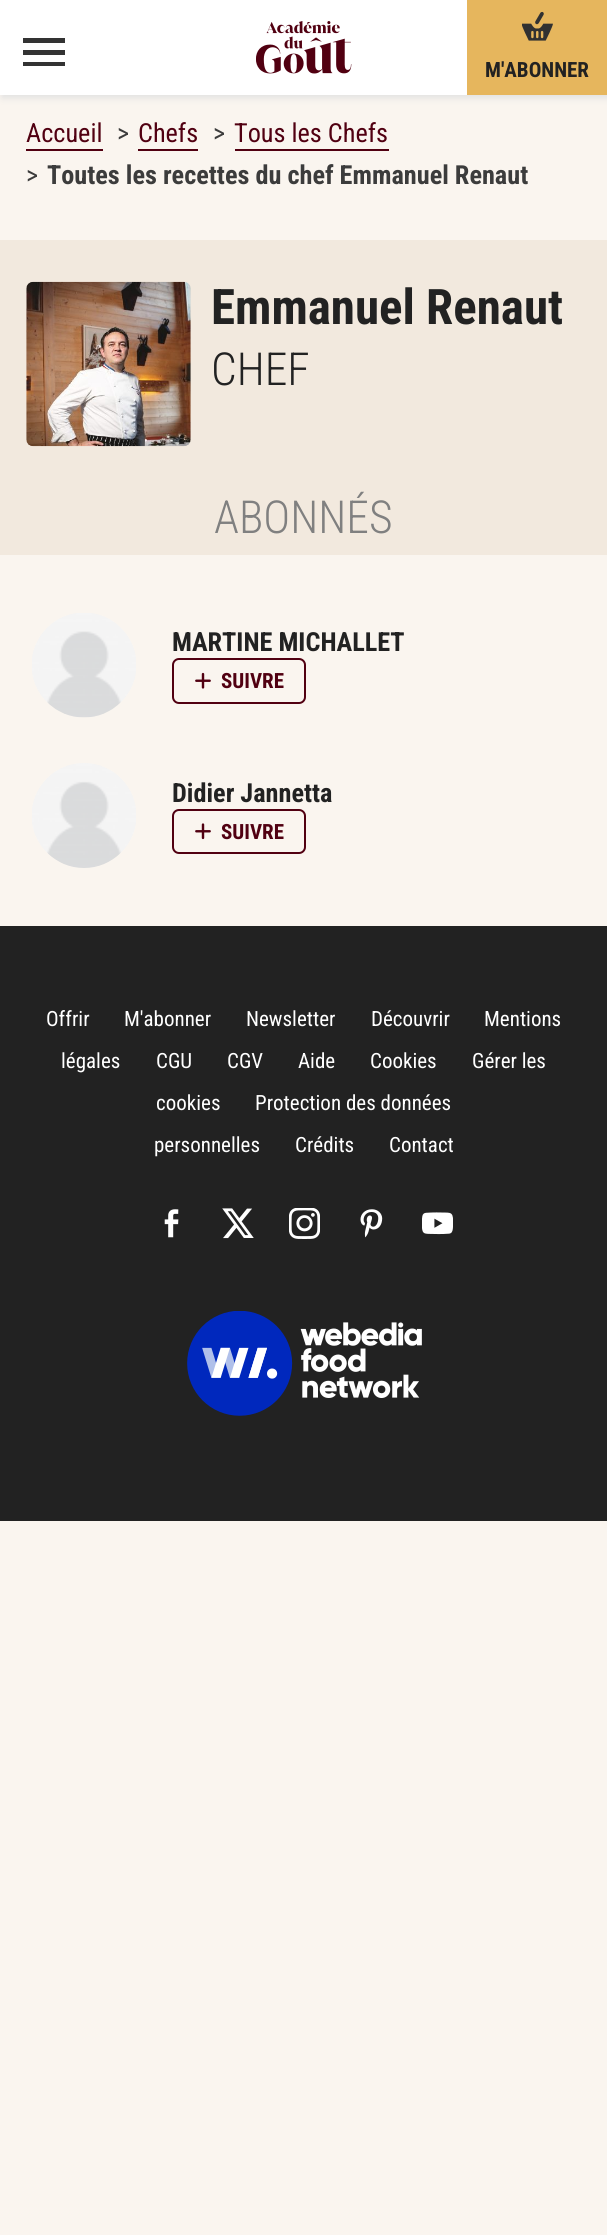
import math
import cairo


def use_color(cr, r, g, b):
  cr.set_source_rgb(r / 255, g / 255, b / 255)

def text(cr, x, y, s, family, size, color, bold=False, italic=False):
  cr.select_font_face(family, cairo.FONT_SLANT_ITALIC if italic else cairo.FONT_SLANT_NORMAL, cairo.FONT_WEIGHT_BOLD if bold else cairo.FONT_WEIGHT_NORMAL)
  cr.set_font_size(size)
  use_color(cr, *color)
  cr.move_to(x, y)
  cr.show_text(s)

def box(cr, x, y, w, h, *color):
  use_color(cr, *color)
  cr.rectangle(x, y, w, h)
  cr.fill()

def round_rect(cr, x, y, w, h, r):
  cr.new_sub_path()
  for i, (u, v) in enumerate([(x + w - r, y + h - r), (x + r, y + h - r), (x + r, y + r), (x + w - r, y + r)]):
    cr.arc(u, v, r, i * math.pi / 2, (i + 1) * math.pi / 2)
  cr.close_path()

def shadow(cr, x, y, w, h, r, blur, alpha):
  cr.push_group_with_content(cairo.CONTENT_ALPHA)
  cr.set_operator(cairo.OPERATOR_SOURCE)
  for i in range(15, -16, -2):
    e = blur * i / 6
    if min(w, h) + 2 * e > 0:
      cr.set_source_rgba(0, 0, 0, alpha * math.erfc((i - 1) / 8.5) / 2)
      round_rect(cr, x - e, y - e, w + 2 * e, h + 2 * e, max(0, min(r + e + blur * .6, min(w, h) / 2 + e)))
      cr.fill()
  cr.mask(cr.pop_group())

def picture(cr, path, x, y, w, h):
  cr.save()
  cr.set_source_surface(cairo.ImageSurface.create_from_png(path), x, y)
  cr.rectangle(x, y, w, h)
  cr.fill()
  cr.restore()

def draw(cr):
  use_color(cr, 250, 245, 239)
  cr.paint()
  use_color(cr, 225, 225, 225)
  shadow(cr, 2, 4, 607, 94, 0, 3.5, 1)
  box(cr, 0, 0, 467, 95, 255, 255, 255)
  box(cr, 23, 62, 42, 4, 51, 51, 51)
  box(cr, 23, 50, 42, 5, 51, 51, 51)
  box(cr, 23, 38, 42, 5, 51, 51, 51)
  picture(cr, "img_01.png", 256, 21, 96, 53)
  box(cr, 467, 0, 140, 95, 230, 182, 93)
  picture(cr, "img_02.png", 522, 11, 31, 30)
  box(cr, 26, 149, 77, 2, 81, 0, 17)
  box(cr, 138, 149, 60, 2, 81, 0, 17)
  box(cr, 235, 149, 154, 2, 81, 0, 17)
  box(cr, 0, 240, 607, 315, 242, 233, 222)
  picture(cr, "img_03.png", 26, 281, 165, 166)
  picture(cr, "img_04.png", 32, 613, 104, 105)
  round_rect(cr, 173, 659, 132, 44, 6)
  use_color(cr, 81, 0, 17)
  cr.stroke()
  picture(cr, "img_05.png", 195, 672, 16, 17)
  picture(cr, "img_06.png", 32, 763, 104, 105)
  round_rect(cr, 173, 810, 132, 43, 6)
  cr.stroke()
  picture(cr, "img_07.png", 195, 823, 16, 17)
  box(cr, 0, 926, 607, 595, 34, 34, 34)
  picture(cr, "img_08.png", 164, 1209, 15, 29)
  picture(cr, "img_09.png", 222, 1208, 32, 31)
  picture(cr, "img_10.png", 289, 1208, 31, 31)
  picture(cr, "img_11.png", 360, 1209, 23, 29)
  picture(cr, "img_12.png", 422, 1212, 31, 23)
  picture(cr, "img_13.png", 187, 1311, 235, 105)
  text(cr, 485, 77, "M'ABONNER", "Roboto Condensed", 21, (34, 34, 34), bold=True)
  text(cr, 26, 142, "Accueil", "Roboto Condensed", 26.25, (81, 0, 17))
  text(cr, 117, 142, ">", "Roboto Condensed", 26.25, (60, 60, 60))
  text(cr, 138, 142, "Chefs", "Roboto Condensed", 26.25, (81, 0, 17))
  text(cr, 213, 142, ">", "Roboto Condensed", 26.25, (60, 60, 60))
  text(cr, 234, 142, "Tous les Chefs", "Roboto Condensed", 26.25, (81, 0, 17))
  text(cr, 26, 184, ">", "Roboto Condensed", 26.25, (60, 60, 60))
  text(cr, 47, 184, "Toutes les recettes du chef Emmanuel Renaut", "Roboto Condensed", 26.25, (60, 60, 60), bold=True)
  text(cr, 211, 324, "Emmanuel Renaut", "Roboto Condensed", 49, (34, 34, 34), bold=True)
  text(cr, 211, 385, "CHEF", "Roboto Condensed Light", 45.5, (34, 34, 34))
  text(cr, 214, 533, "ABONNÉS", "Roboto Condensed Light", 45.5, (128, 128, 128))
  text(cr, 172, 651, "MARTINE MICHALLET", "Roboto Condensed", 26.25, (34, 34, 34), bold=True)
  text(cr, 221, 688, "SUIVRE", "Roboto Condensed", 21, (81, 0, 17), bold=True)
  text(cr, 172, 802, "Didier Jannetta", "Roboto Condensed", 26.25, (34, 34, 34), bold=True)
  text(cr, 221, 839, "SUIVRE", "Roboto Condensed", 21, (81, 0, 17), bold=True)
  text(cr, 46, 1026, "Offrir", "Roboto Condensed", 21, (255, 255, 255))
  text(cr, 124, 1026, "M'abonner", "Roboto Condensed", 21, (255, 255, 255))
  text(cr, 246, 1026, "Newsletter", "Roboto Condensed", 21, (255, 255, 255))
  text(cr, 371, 1026, "Découvrir", "Roboto Condensed", 21, (255, 255, 255))
  text(cr, 484, 1026, "Mentions", "Roboto Condensed", 21, (255, 255, 255))
  text(cr, 61, 1068, "légales", "Roboto Condensed", 21, (255, 255, 255))
  text(cr, 156, 1068, "CGU", "Roboto Condensed", 21, (255, 255, 255))
  text(cr, 227, 1068, "CGV", "Roboto Condensed", 21, (255, 255, 255))
  text(cr, 298, 1068, "Aide", "Roboto Condensed", 21, (255, 255, 255))
  text(cr, 370, 1068, "Cookies", "Roboto Condensed", 21, (255, 255, 255))
  text(cr, 472, 1068, "Gérer les", "Roboto Condensed", 21, (255, 255, 255))
  text(cr, 156, 1110, "cookies", "Roboto Condensed", 21, (255, 255, 255))
  text(cr, 255, 1110, "Protection des données", "Roboto Condensed", 21, (255, 255, 255))
  text(cr, 154, 1152, "personnelles", "Roboto Condensed", 21, (255, 255, 255))
  text(cr, 295, 1152, "Crédits", "Roboto Condensed", 21, (255, 255, 255))
  text(cr, 389, 1152, "Contact", "Roboto Condensed", 21, (255, 255, 255))


surface = cairo.ImageSurface(cairo.FORMAT_RGB24, 607, 2235)
cr = cairo.Context(surface)
options = cairo.FontOptions()
options.set_hint_metrics(cairo.HINT_METRICS_OFF)
options.set_hint_style(cairo.HINT_STYLE_NONE)
cr.set_font_options(options)
cr.set_miter_limit(4)
draw(cr)
surface.write_to_png("out.png")
